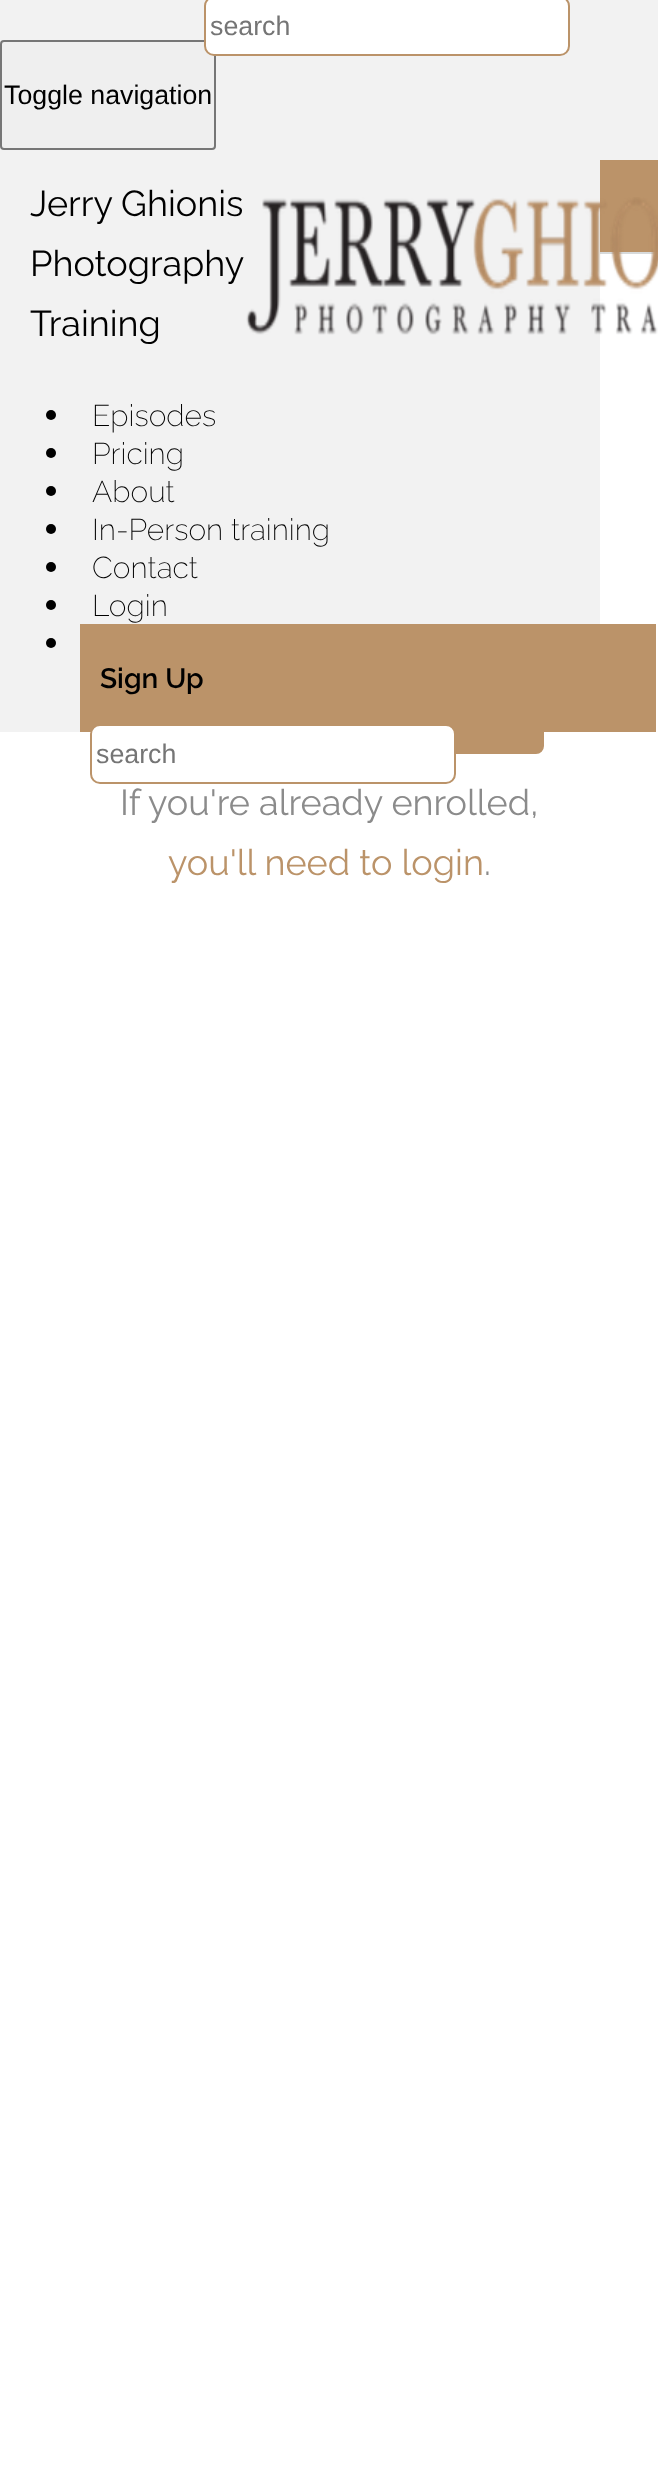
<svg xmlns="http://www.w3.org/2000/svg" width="658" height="2467">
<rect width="100%" height="100%" fill="#fff"/>
<rect x="115" y="663" width="428" height="90" rx="7" fill="#bb9369" stroke="#bb9369" stroke-width="2"/>
<rect width="600" height="732" fill="#f2f2f2"/>
<rect x="1" y="41" width="214" height="108" rx="3" fill="#efefef" stroke="#767676" stroke-width="2"/>
<rect x="205" y="-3" width="364" height="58" rx="9" fill="#fff" stroke="#bb9369" stroke-width="2"/>
<text x="210" y="35" style="font-family:Liberation Sans;font-size:26.75px;fill:#757575">search</text>
<text x="4" y="104" style="font-family:Liberation Sans;font-size:26.75px;fill:#000">Toggle navigation</text>
<text x="30" y="216" style="font-family:Raleway;font-size:36px;fill:#000">Jerry Ghionis</text>
<text x="30" y="276" style="font-family:Raleway;font-size:36px;fill:#000">Photography</text>
<text x="30" y="336" style="font-family:Raleway;font-size:36px;fill:#000">Training</text>
<rect x="600" y="252" width="58" height="2" fill="#d7dadb"/>
<rect x="600" y="160" width="58" height="92" fill="#bb9369"/>
<image x="246" y="197" width="412" height="138" href="media/1.png"/>
<circle cx="51" cy="415" r="5" fill="#000"/>
<text x="92" y="426" style="font-family:Raleway;font-size:30px;font-weight:200;fill:#000">Episodes</text>
<circle cx="51" cy="453" r="5" fill="#000"/>
<text x="92" y="464" style="font-family:Raleway;font-size:30px;font-weight:200;fill:#000">Pricing</text>
<circle cx="51" cy="491" r="5" fill="#000"/>
<text x="92" y="502" style="font-family:Raleway;font-size:30px;font-weight:200;fill:#000">About</text>
<circle cx="51" cy="529" r="5" fill="#000"/>
<text x="92" y="540" style="font-family:Raleway;font-size:30px;font-weight:200;fill:#000">In-Person training</text>
<circle cx="51" cy="567" r="5" fill="#000"/>
<text x="92" y="578" style="font-family:Raleway;font-size:30px;font-weight:200;fill:#000">Contact</text>
<circle cx="51" cy="605" r="5" fill="#000"/>
<text x="92" y="616" style="font-family:Raleway;font-size:30px;font-weight:200;fill:#000">Login</text>
<circle cx="51" cy="643" r="5" fill="#000"/>
<rect x="80" y="624" width="576" height="108" fill="#bb9369"/>
<text x="100" y="688" style="font-family:Raleway;font-size:28px;font-weight:600;fill:#000">Sign Up</text>
<rect x="91" y="725" width="364" height="58" rx="9" fill="#fff" stroke="#bb9369" stroke-width="2"/>
<text x="96" y="763" style="font-family:Liberation Sans;font-size:26.75px;fill:#757575">search</text>
<rect x="600" width="58" height="160" fill="#f2f2f2"/>
<text x="120" y="815" style="font-family:Raleway;font-size:36px;fill:#8b8b8b">If you're already enrolled,</text>
<text x="168" y="875" style="font-family:Raleway;font-size:36px;fill:#bb9369">you'll need to login</text>
<text x="484" y="875" style="font-family:Raleway;font-size:36px;fill:#8b8b8b">.</text>
</svg>
